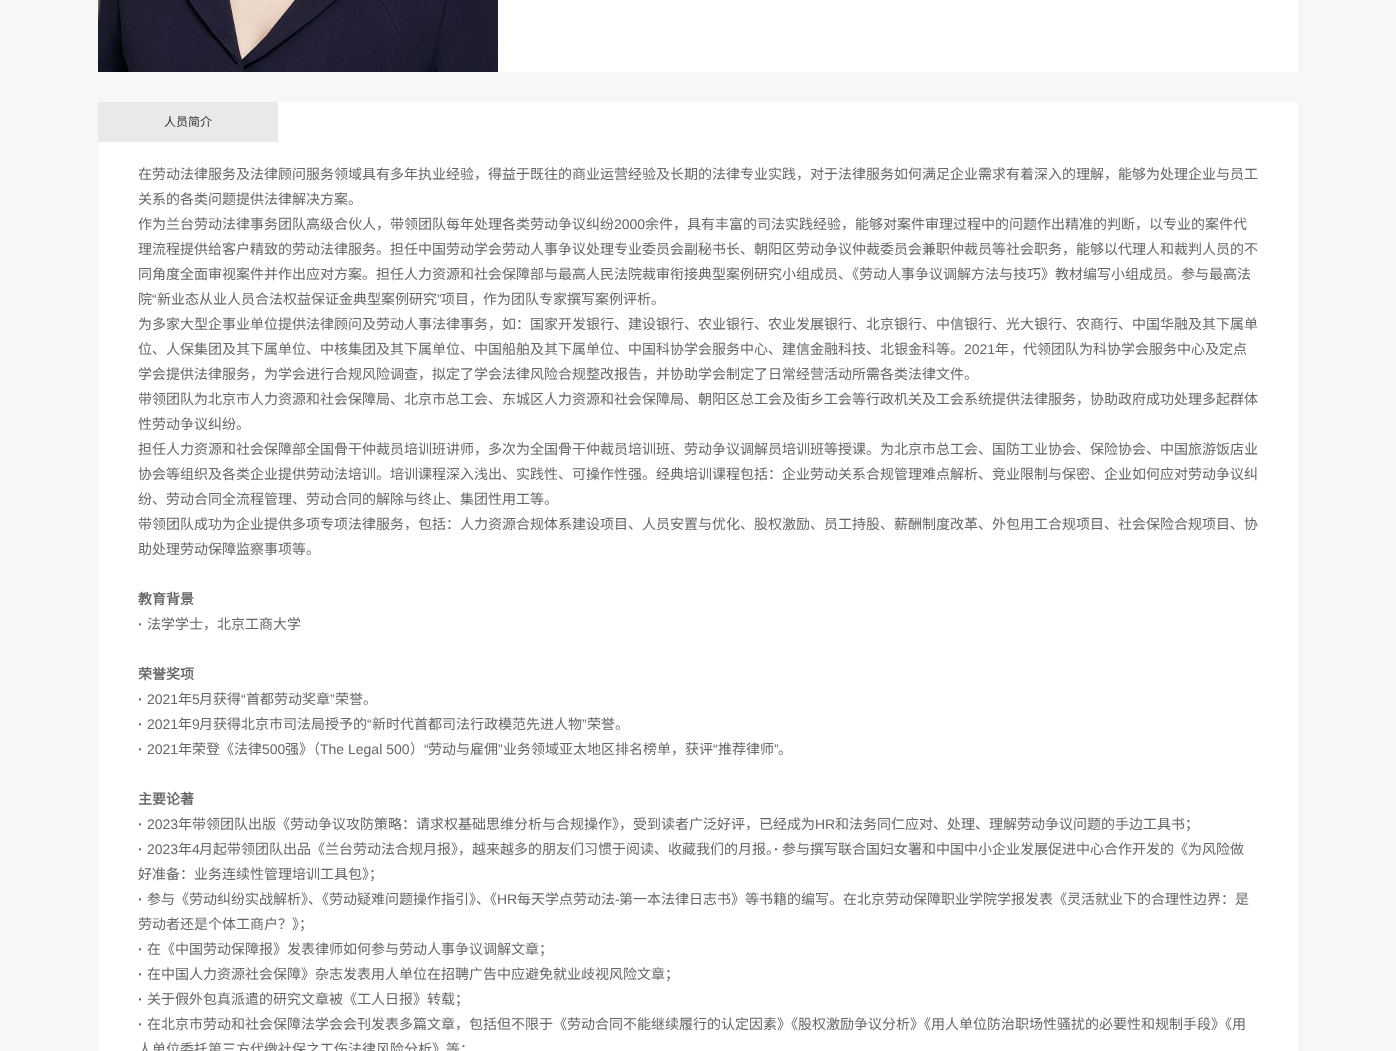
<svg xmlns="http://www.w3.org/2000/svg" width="1396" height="1051">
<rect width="100%" height="100%" fill="#f7f7f7"/>
<image x="98" y="0" width="400" height="72" href="media/1.png"/>
<rect x="498" width="800" height="72" fill="#fff"/>
<rect x="98" y="102" width="1200" height="949" fill="#fff"/>
<rect x="98" y="102" width="180" height="40" fill="#e9e9e9"/>
<text x="164" y="126" style="font-family:Noto Sans CJK SC;font-size:12px;fill:#333">人员简介</text>
<text x="138" y="179" style="font-family:Noto Sans CJK SC;font-size:14px;fill:#666">在劳动法律服务及法律顾问服务领域具有多年执业经验，得益于既往的商业运营经验及长期的法律专业实践，对于法律服务如何满足企业需求有着深入的理解，能够为处理企业与员工</text>
<text x="138" y="204" style="font-family:Noto Sans CJK SC;font-size:14px;fill:#666">关系的各类问题提供法律解决方案。</text>
<text x="138" y="229" style="font-family:Noto Sans CJK SC;font-size:14px;fill:#666">作为兰台劳动法律事务团队高级合伙人，带领团队每年处理各类劳动争议纠纷</text>
<text x="614" y="229" style="font-family:Liberation Sans;font-size:14px;fill:#666">2000</text>
<text x="645" y="229" style="font-family:Noto Sans CJK SC;font-size:14px;fill:#666">余件，具有丰富的司法实践经验，能够对案件审理过程中的问题作出精准的判断，以专业的案件代</text>
<text x="138" y="254" style="font-family:Noto Sans CJK SC;font-size:14px;fill:#666">理流程提供给客户精致的劳动法律服务。担任中国劳动学会劳动人事争议处理专业委员会副秘书长、朝阳区劳动争议仲裁委员会兼职仲裁员等社会职务，能够以代理人和裁判人员的不</text>
<text x="138" y="279" style="font-family:Noto Sans CJK SC;font-size:14px;fill:#666">同角度全面审视案件并作出应对方案。担任人力资源和社会保障部与最高人民法院裁审衔接典型案例研究小组成员、《劳动人事争议调解方法与技巧》教材编写小组成员。参与最高法</text>
<text x="138" y="304" style="font-family:Noto Sans CJK SC;font-size:14px;fill:#666">院</text>
<text x="152" y="304" style="font-family:Liberation Sans;font-size:14px;fill:#666">“</text>
<text x="157" y="304" style="font-family:Noto Sans CJK SC;font-size:14px;fill:#666">新业态从业人员合法权益保证金典型案例研究</text>
<text x="437" y="304" style="font-family:Liberation Sans;font-size:14px;fill:#666">”</text>
<text x="441" y="304" style="font-family:Noto Sans CJK SC;font-size:14px;fill:#666">项目，作为团队专家撰写案例评析。</text>
<text x="138" y="329" style="font-family:Noto Sans CJK SC;font-size:14px;fill:#666">为多家大型企事业单位提供法律顾问及劳动人事法律事务，如：国家开发银行、建设银行、农业银行、农业发展银行、北京银行、中信银行、光大银行、农商行、中国华融及其下属单</text>
<text x="138" y="354" style="font-family:Noto Sans CJK SC;font-size:14px;fill:#666">位、人保集团及其下属单位、中核集团及其下属单位、中国船舶及其下属单位、中国科协学会服务中心、建信金融科技、北银金科等。</text>
<text x="964" y="354" style="font-family:Liberation Sans;font-size:14px;fill:#666">2021</text>
<text x="995" y="354" style="font-family:Noto Sans CJK SC;font-size:14px;fill:#666">年，代领团队为科协学会服务中心及定点</text>
<text x="138" y="379" style="font-family:Noto Sans CJK SC;font-size:14px;fill:#666">学会提供法律服务，为学会进行合规风险调查，拟定了学会法律风险合规整改报告，并协助学会制定了日常经营活动所需各类法律文件。</text>
<text x="138" y="404" style="font-family:Noto Sans CJK SC;font-size:14px;fill:#666">带领团队为北京市人力资源和社会保障局、北京市总工会、东城区人力资源和社会保障局、朝阳区总工会及街乡工会等行政机关及工会系统提供法律服务，协助政府成功处理多起群体</text>
<text x="138" y="429" style="font-family:Noto Sans CJK SC;font-size:14px;fill:#666">性劳动争议纠纷。</text>
<text x="138" y="454" style="font-family:Noto Sans CJK SC;font-size:14px;fill:#666">担任人力资源和社会保障部全国骨干仲裁员培训班讲师，多次为全国骨干仲裁员培训班、劳动争议调解员培训班等授课。为北京市总工会、国防工业协会、保险协会、中国旅游饭店业</text>
<text x="138" y="479" style="font-family:Noto Sans CJK SC;font-size:14px;fill:#666">协会等组织及各类企业提供劳动法培训。培训课程深入浅出、实践性、可操作性强。经典培训课程包括：企业劳动关系合规管理难点解析、竞业限制与保密、企业如何应对劳动争议纠</text>
<text x="138" y="504" style="font-family:Noto Sans CJK SC;font-size:14px;fill:#666">纷、劳动合同全流程管理、劳动合同的解除与终止、集团性用工等。</text>
<text x="138" y="529" style="font-family:Noto Sans CJK SC;font-size:14px;fill:#666">带领团队成功为企业提供多项专项法律服务，包括：人力资源合规体系建设项目、人员安置与优化、股权激励、员工持股、薪酬制度改革、外包用工合规项目、社会保险合规项目、协</text>
<text x="138" y="554" style="font-family:Noto Sans CJK SC;font-size:14px;fill:#666">助处理劳动保障监察事项等。</text>
<text x="138" y="604" style="font-family:Noto Sans CJK SC;font-size:14px;font-weight:bold;fill:#666">教育背景</text>
<text x="138" y="629" style="font-family:Liberation Sans;font-size:14px;font-weight:bold;fill:#666">·</text>
<text x="147" y="629" style="font-family:Noto Sans CJK SC;font-size:14px;fill:#666">法学学士，北京工商大学</text>
<text x="138" y="679" style="font-family:Noto Sans CJK SC;font-size:14px;font-weight:bold;fill:#666">荣誉奖项</text>
<text x="147" y="704" style="font-family:Liberation Sans;font-size:14px;fill:#666">2021</text>
<text x="178" y="704" style="font-family:Noto Sans CJK SC;font-size:14px;fill:#666">年</text>
<text x="192" y="704" style="font-family:Liberation Sans;font-size:14px;fill:#666">5</text>
<text x="199" y="704" style="font-family:Noto Sans CJK SC;font-size:14px;fill:#666">月获得</text>
<text x="241" y="704" style="font-family:Liberation Sans;font-size:14px;fill:#666">“</text>
<text x="246" y="704" style="font-family:Noto Sans CJK SC;font-size:14px;fill:#666">首都劳动奖章</text>
<text x="330" y="704" style="font-family:Liberation Sans;font-size:14px;fill:#666">”</text>
<text x="335" y="704" style="font-family:Noto Sans CJK SC;font-size:14px;fill:#666">荣誉。</text>
<text x="138" y="704" style="font-family:Liberation Sans;font-size:14px;font-weight:bold;fill:#666">·</text>
<text x="147" y="729" style="font-family:Liberation Sans;font-size:14px;fill:#666">2021</text>
<text x="178" y="729" style="font-family:Noto Sans CJK SC;font-size:14px;fill:#666">年</text>
<text x="192" y="729" style="font-family:Liberation Sans;font-size:14px;fill:#666">9</text>
<text x="199" y="729" style="font-family:Noto Sans CJK SC;font-size:14px;fill:#666">月获得北京市司法局授予的</text>
<text x="367" y="729" style="font-family:Liberation Sans;font-size:14px;fill:#666">“</text>
<text x="372" y="729" style="font-family:Noto Sans CJK SC;font-size:14px;fill:#666">新时代首都司法行政模范先进人物</text>
<text x="582" y="729" style="font-family:Liberation Sans;font-size:14px;fill:#666">”</text>
<text x="587" y="729" style="font-family:Noto Sans CJK SC;font-size:14px;fill:#666">荣誉。</text>
<text x="138" y="729" style="font-family:Liberation Sans;font-size:14px;font-weight:bold;fill:#666">·</text>
<text x="147" y="754" style="font-family:Liberation Sans;font-size:14px;fill:#666">2021</text>
<text x="178" y="754" style="font-family:Noto Sans CJK SC;font-size:14px;fill:#666">年荣登《法律</text>
<text x="262" y="754" style="font-family:Liberation Sans;font-size:14px;fill:#666">500</text>
<text x="285" y="754" style="font-family:Noto Sans CJK SC;font-size:14px;fill:#666">强》（</text>
<text x="320" y="754" style="font-family:Liberation Sans;font-size:14px;fill:#666">The Legal 500</text>
<text x="410" y="754" style="font-family:Noto Sans CJK SC;font-size:14px;fill:#666">）</text>
<text x="424" y="754" style="font-family:Liberation Sans;font-size:14px;fill:#666">“</text>
<text x="428" y="754" style="font-family:Noto Sans CJK SC;font-size:14px;fill:#666">劳动与雇佣</text>
<text x="498" y="754" style="font-family:Liberation Sans;font-size:14px;fill:#666">”</text>
<text x="503" y="754" style="font-family:Noto Sans CJK SC;font-size:14px;fill:#666">业务领域亚太地区排名榜单，获评</text>
<text x="713" y="754" style="font-family:Liberation Sans;font-size:14px;fill:#666">“</text>
<text x="718" y="754" style="font-family:Noto Sans CJK SC;font-size:14px;fill:#666">推荐律师</text>
<text x="774" y="754" style="font-family:Liberation Sans;font-size:14px;fill:#666">”</text>
<text x="138" y="754" style="font-family:Liberation Sans;font-size:14px;font-weight:bold;fill:#666">·</text>
<text x="778" y="754" style="font-family:Noto Sans CJK SC;font-size:14px;fill:#666">。</text>
<text x="138" y="804" style="font-family:Noto Sans CJK SC;font-size:14px;font-weight:bold;fill:#666">主要论著</text>
<text x="138" y="829" style="font-family:Liberation Sans;font-size:14px;font-weight:bold;fill:#666">·</text>
<text x="147" y="829" style="font-family:Liberation Sans;font-size:14px;fill:#666">2023</text>
<text x="178" y="829" style="font-family:Noto Sans CJK SC;font-size:14px;fill:#666">年带领团队出版《劳动争议攻防策略：请求权基础思维分析与合规操作》，受到读者广泛好评，已经成为</text>
<text x="815" y="829" style="font-family:Liberation Sans;font-size:14px;fill:#666">HR</text>
<text x="835" y="829" style="font-family:Noto Sans CJK SC;font-size:14px;fill:#666">和法务同仁应对、处理、理解劳动争议问题的手边工具书；</text>
<text x="138" y="854" style="font-family:Liberation Sans;font-size:14px;font-weight:bold;fill:#666">·</text>
<text x="147" y="854" style="font-family:Liberation Sans;font-size:14px;fill:#666">2023</text>
<text x="178" y="854" style="font-family:Noto Sans CJK SC;font-size:14px;fill:#666">年</text>
<text x="192" y="854" style="font-family:Liberation Sans;font-size:14px;fill:#666">4</text>
<text x="199" y="854" style="font-family:Noto Sans CJK SC;font-size:14px;fill:#666">月起带领团队出品《兰台劳动法合规月报》，越来越多的朋友们习惯于阅读、收藏我们的月报。</text>
<text x="774" y="854" style="font-family:Liberation Sans;font-size:14px;font-weight:bold;fill:#666">·</text>
<text x="782" y="854" style="font-family:Noto Sans CJK SC;font-size:14px;fill:#666">参与撰写联合国妇女署和中国中小企业发展促进中心合作开发的《为风险做</text>
<text x="138" y="879" style="font-family:Noto Sans CJK SC;font-size:14px;fill:#666">好准备：业务连续性管理培训工具包》；</text>
<text x="138" y="904" style="font-family:Liberation Sans;font-size:14px;font-weight:bold;fill:#666">·</text>
<text x="147" y="904" style="font-family:Noto Sans CJK SC;font-size:14px;fill:#666">参与《劳动纠纷实战解析》、《劳动疑难问题操作指引》、《</text>
<text x="497" y="904" style="font-family:Liberation Sans;font-size:14px;fill:#666">HR</text>
<text x="517" y="904" style="font-family:Noto Sans CJK SC;font-size:14px;fill:#666">每天学点劳动法</text>
<text x="615" y="904" style="font-family:Liberation Sans;font-size:14px;fill:#666">-</text>
<text x="619" y="904" style="font-family:Noto Sans CJK SC;font-size:14px;fill:#666">第一本法律日志书》等书籍的编写。在北京劳动保障职业学院学报发表《灵活就业下的合理性边界：是</text>
<text x="138" y="929" style="font-family:Noto Sans CJK SC;font-size:14px;fill:#666">劳动者还是个体工商户？》；</text>
<text x="138" y="954" style="font-family:Liberation Sans;font-size:14px;font-weight:bold;fill:#666">·</text>
<text x="147" y="954" style="font-family:Noto Sans CJK SC;font-size:14px;fill:#666">在《中国劳动保障报》发表律师如何参与劳动人事争议调解文章；</text>
<text x="138" y="979" style="font-family:Liberation Sans;font-size:14px;font-weight:bold;fill:#666">·</text>
<text x="147" y="979" style="font-family:Noto Sans CJK SC;font-size:14px;fill:#666">在中国人力资源社会保障》杂志发表用人单位在招聘广告中应避免就业歧视风险文章；</text>
<text x="138" y="1004" style="font-family:Liberation Sans;font-size:14px;font-weight:bold;fill:#666">·</text>
<text x="147" y="1004" style="font-family:Noto Sans CJK SC;font-size:14px;fill:#666">关于假外包真派遣的研究文章被《工人日报》转载；</text>
<text x="138" y="1029" style="font-family:Liberation Sans;font-size:14px;font-weight:bold;fill:#666">·</text>
<text x="147" y="1029" style="font-family:Noto Sans CJK SC;font-size:14px;fill:#666">在北京市劳动和社会保障法学会会刊发表多篇文章，包括但不限于《劳动合同不能继续履行的认定因素》《股权激励争议分析》《用人单位防治职场性骚扰的必要性和规制手段》《用</text>
<text x="138" y="1054" style="font-family:Noto Sans CJK SC;font-size:14px;fill:#666">人单位委托第三方代缴社保之工伤法律风险分析》等；</text>
</svg>
